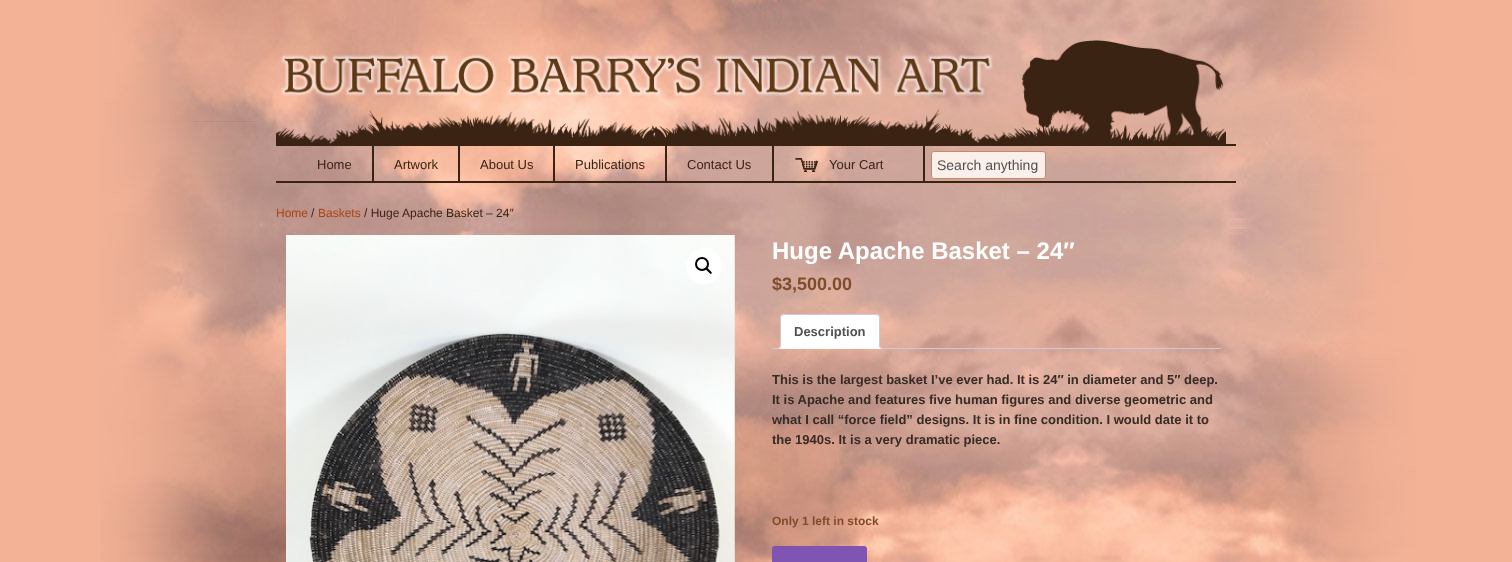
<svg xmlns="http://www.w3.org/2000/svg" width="1512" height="562">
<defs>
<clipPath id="clip1"><rect x="772" y="314" width="449" height="35"/></clipPath>
</defs>
<rect width="100%" height="100%" fill="#f3b296"/>
<image x="100" y="0" width="1316" height="562" href="media/1.png"/>
<image x="276" y="40" width="950" height="104" href="media/2.png"/>
<rect x="276" y="144" width="960" height="2" fill="#3b2314"/>
<rect x="372" y="146" width="2" height="35" fill="#3b2314"/>
<text x="317" y="169" style="font-family:Liberation Sans;font-size:13px;fill:#3b2314">Home</text>
<rect x="458" y="146" width="2" height="35" fill="#3b2314"/>
<text x="394" y="169" style="font-family:Liberation Sans;font-size:13px;fill:#3b2314">Artwork</text>
<rect x="553" y="146" width="2" height="35" fill="#3b2314"/>
<text x="480" y="169" style="font-family:Liberation Sans;font-size:13px;fill:#3b2314">About Us</text>
<rect x="665" y="146" width="2" height="35" fill="#3b2314"/>
<text x="575" y="169" style="font-family:Liberation Sans;font-size:13px;fill:#3b2314">Publications</text>
<rect x="772" y="146" width="2" height="35" fill="#3b2314"/>
<text x="687" y="169" style="font-family:Liberation Sans;font-size:13px;fill:#3b2314">Contact Us</text>
<rect x="923" y="146" width="2" height="35" fill="#3b2314"/>
<image x="795" y="158" width="24" height="14" href="media/3.png"/>
<text x="829" y="169" style="font-family:Liberation Sans;font-size:13px;fill:#3b2314">Your Cart</text>
<rect x="931.5" y="151.5" width="114" height="27" rx="2.5" fill="#fbefea" stroke="#c38a72"/>
<text x="937" y="170" style="font-family:Liberation Sans;font-size:14px;fill:#515151">Search anything</text>
<rect x="276" y="181" width="960" height="2" fill="#3b2314"/>
<text x="276" y="217" style="font-family:Liberation Sans;font-size:12px;fill:#ad4310">Home</text>
<text x="311" y="217" style="font-family:Liberation Sans;font-size:12px;fill:#3b2314">/</text>
<text x="318" y="217" style="font-family:Liberation Sans;font-size:12px;fill:#ad4310">Baskets</text>
<text x="364" y="217" style="font-family:Liberation Sans;font-size:12px;fill:#3b2314">/ Huge Apache Basket – 24″</text>
<image x="286" y="235" width="449" height="327" href="media/4.png"/>
<circle cx="704" cy="266" r="18" fill="#fff"/>
<circle cx="702" cy="264" r="6" fill="none" stroke="#000" stroke-width="2"/>
<path d="M706 268c1-1 3 1.5 3.5 2c.5 1 3.5 2.5 2 3.5c-1 1.5-3-1.5-3.5-2c-.5-.5-3-2.5-2-3.5z" fill="#000"/>
<text x="772" y="259" style="font-family:Liberation Sans;font-size:24px;font-weight:bold;fill:#fff">Huge Apache Basket – 24″</text>
<text x="772" y="290" style="font-family:Liberation Sans;font-size:18px;font-weight:bold;fill:#814c2c">$3,500.00</text>
<rect x="772" y="348" width="449" height="1" fill="#cfc8d8"/>
<path d="M784 314h92c2 0 4 2 4 4v31h-100v-31c0-2 2-4 4-4z" fill="#fff"/>
<path d="M784 314l-3 1l1 1l2-1h92l2 1l1-1l-3-1z" fill="#cfc8d8"/>
<path d="M880 349v-31c0-1-.5-2-1-3l-1 1c1 0 1 1 1 2v30z" fill="#cfc8d8"/>
<path d="M880 349l-1-1h-98l-1 1z" fill="#fff"/>
<path d="M780 349l1-1v-30c0-1 0-2 1-2l-1-1c-.5 1-1 2-1 3z" fill="#cfc8d8"/>
<text x="794" y="336" style="font-family:Liberation Sans;font-size:13px;font-weight:bold;fill:#515151">Description</text>
<g clip-path="url(#clip1)">
<path d="M778 349v2c3.5 0 5-1.5 5-5h-2c-.5 1.5-1.5 2.5-3 3z" fill="#fff"/>
</g>
<path d="M776 344h5c0 3.5-1.5 5-5 5zm0 0h4c0 3-1 4-4 4z" fill="#cfc8d8" fill-rule="evenodd"/>
<g clip-path="url(#clip1)">
<path d="M877 346c0 3.5 1.5 5 5 5v-2c-1.5-.5-2.5-1.5-3-3z" fill="#fff"/>
</g>
<path d="M879 344h5v5c-2.5 0-5-1-5-4zm1 0h4v4c-2 0-4-.5-4-3z" fill="#cfc8d8" fill-rule="evenodd"/>
<text x="772" y="384" style="font-family:Liberation Sans;font-size:13px;font-weight:bold;fill:#382b25">This is the largest basket I’ve ever had. It is 24″ in diameter and 5″ deep.</text>
<text x="772" y="404" style="font-family:Liberation Sans;font-size:13px;font-weight:bold;fill:#382b25">It is Apache and features five human figures and diverse geometric and</text>
<text x="772" y="424" style="font-family:Liberation Sans;font-size:13px;font-weight:bold;fill:#382b25">what I call “force field” designs. It is in fine condition. I would date it to</text>
<text x="772" y="444" style="font-family:Liberation Sans;font-size:13px;font-weight:bold;fill:#382b25">the 1940s. It is a very dramatic piece.</text>
<text x="772" y="525" style="font-family:Liberation Sans;font-size:12px;font-weight:bold;fill:#814c2c">Only 1 left in stock</text>
<rect x="772" y="546" width="95" height="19" rx="3" fill="#7f54b3"/>
</svg>
